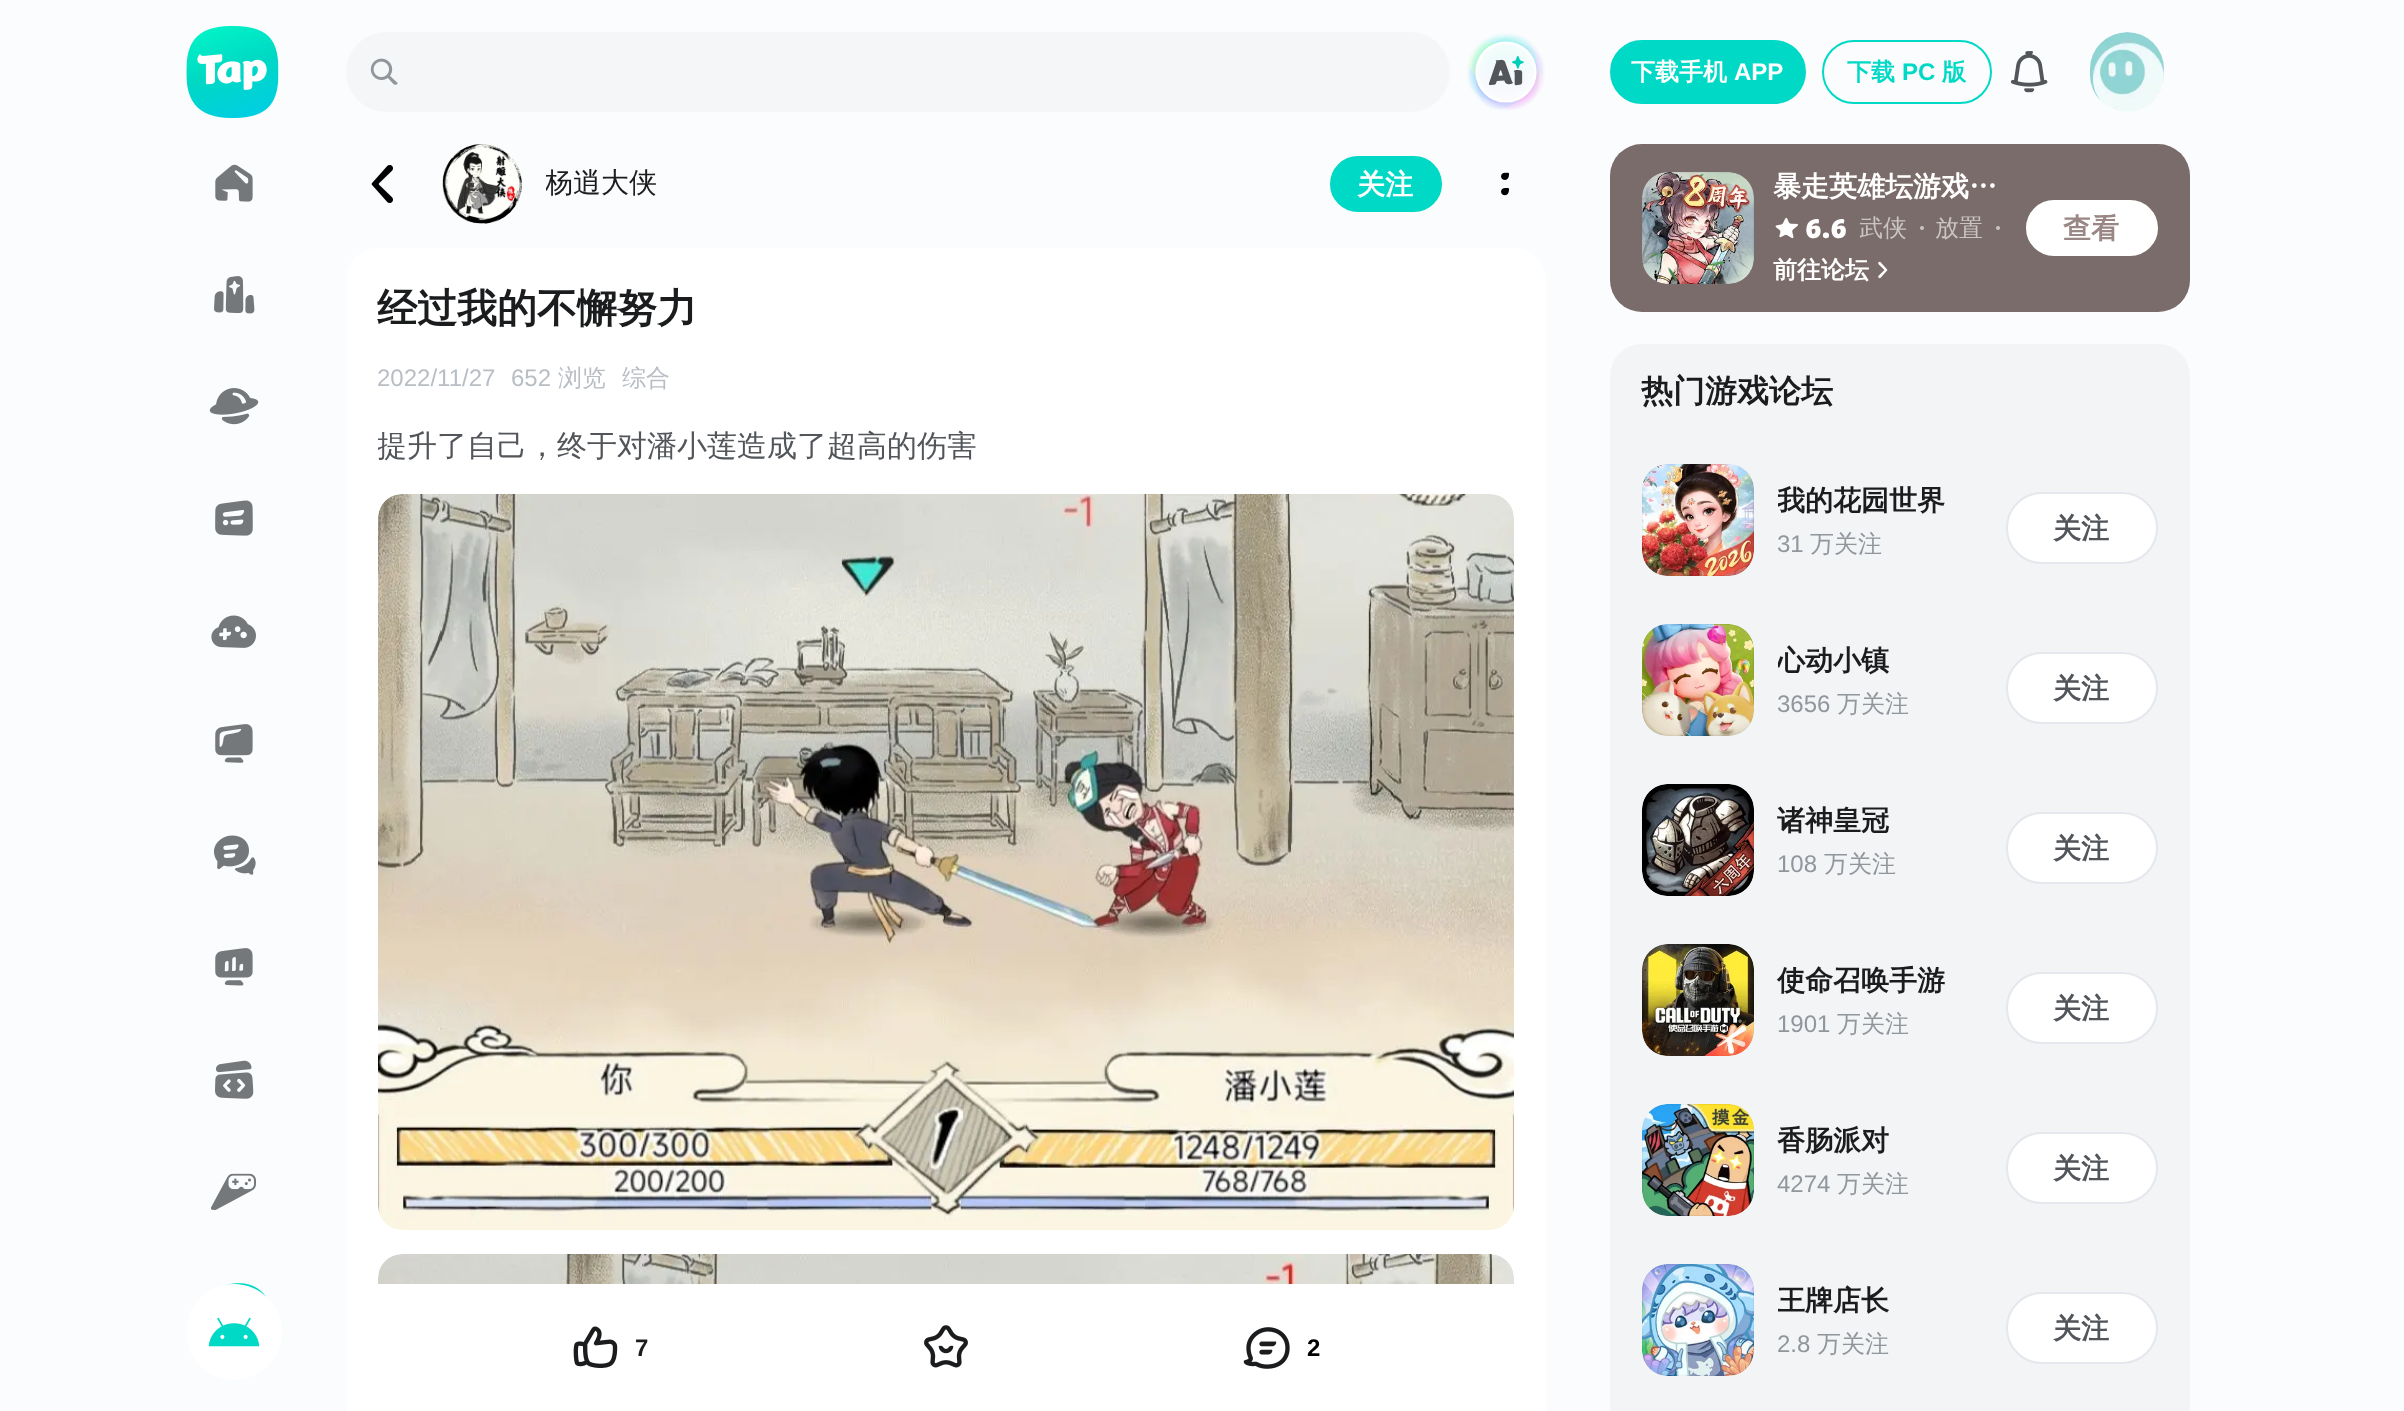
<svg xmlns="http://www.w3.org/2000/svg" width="2404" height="1411">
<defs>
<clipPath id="clip1"><rect x="546" y="166" width="112" height="36"/></clipPath>
<clipPath id="clip2"><rect x="378" y="420" width="1136" height="50"/></clipPath>
<clipPath id="clip3"><rect x="1860" y="208" width="150" height="40"/></clipPath>
<clipPath id="clip4"><rect x="1778" y="478" width="212" height="44"/></clipPath>
<clipPath id="clip5"><rect x="1778" y="638" width="212" height="44"/></clipPath>
<clipPath id="clip6"><rect x="1778" y="1278" width="212" height="44"/></clipPath>
</defs>
<rect width="100%" height="100%" fill="#fafcfd"/>
<image x="186" y="26" width="93" height="92" href="media/1.png"/>
<image x="215" y="164" width="38" height="38" href="media/2.png"/>
<image x="214" y="276" width="41" height="38" href="media/3.png"/>
<image x="209" y="388" width="50" height="37" href="media/4.png"/>
<image x="215" y="500" width="38" height="36" href="media/5.png"/>
<image x="211" y="615" width="45" height="33" href="media/6.png"/>
<image x="215" y="724" width="38" height="39" href="media/7.png"/>
<image x="213" y="835" width="43" height="40" href="media/8.png"/>
<image x="215" y="948" width="38" height="38" href="media/9.png"/>
<image x="215" y="1060" width="39" height="39" href="media/10.png"/>
<image x="211" y="1173" width="45" height="37" href="media/11.png"/>
<image x="224" y="1283" width="44" height="16" href="media/12.png"/>
<circle cx="234" cy="1332" r="48" fill="#fff"/>
<image x="208" y="1317" width="52" height="30" href="media/13.png"/>
<rect x="346" y="32" width="1104" height="80" rx="40" fill="#f4f6f8"/>
<image x="370" y="58" width="28" height="27" href="media/14.png"/>
<image x="1467" y="33" width="78" height="78" href="media/15.png"/>
<image x="371" y="164" width="22" height="39" href="media/16.png"/>
<circle cx="482" cy="184" r="39.5" fill="none" stroke="#ebedee"/>
<image x="442" y="144" width="80" height="80" href="media/17.png"/>
<g clip-path="url(#clip1)">
<text x="545" y="192" style="font-family:WenQuanYi Zen Hei;font-size:28px;font-weight:500;fill:#1a1c1e">杨逍大侠</text>
</g>
<rect x="1331" y="157" width="110" height="54" rx="27" fill="#00d9c5" stroke="#00d9c5" stroke-width="2"/>
<text x="1357" y="194" style="font-family:WenQuanYi Zen Hei;font-size:28px;font-weight:bold;fill:#fff">关注</text>
<image x="1501" y="172" width="9" height="24" href="media/18.png"/>
<rect x="346" y="248" width="1200" height="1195" rx="32" fill="#fff"/>
<text x="377" y="322" style="font-family:WenQuanYi Zen Hei;font-size:40px;font-weight:bold;fill:#1a1c1e">经过我的不懈努力</text>
<text x="377" y="386" style="font-family:Liberation Sans;font-size:24px;fill:#b8bec4">2022/11/27</text>
<text x="511" y="386" style="font-family:Liberation Sans;font-size:24px;fill:#b8bec4">652</text>
<text x="558" y="386" style="font-family:WenQuanYi Zen Hei;font-size:24px;font-weight:500;fill:#b8bec4">浏览</text>
<text x="622" y="386" style="font-family:WenQuanYi Zen Hei;font-size:24px;font-weight:500;fill:#b8bec4">综合</text>
<g clip-path="url(#clip2)">
<text x="377" y="456" style="font-family:WenQuanYi Zen Hei;font-size:30px;font-weight:500;fill:#52565a">提升了自己，终于对潘小莲造成了超高的伤害</text>
</g>
<image x="378" y="494" width="1136" height="736" href="media/19.png"/>
<image x="378" y="1254" width="1136" height="30" href="media/20.png"/>
<image x="573" y="1326" width="45" height="42" href="media/21.png"/>
<text x="635" y="1356" style="font-family:Liberation Sans;font-size:24px;font-weight:bold;fill:#1a1c1e">7</text>
<image x="924" y="1325" width="44" height="43" href="media/22.png"/>
<image x="1243" y="1327" width="47" height="42" href="media/23.png"/>
<text x="1307" y="1356" style="font-family:Liberation Sans;font-size:24px;font-weight:bold;fill:#000">2</text>
<rect x="1611" y="41" width="194" height="62" rx="31" fill="#00d9c5" stroke="#00d9c5" stroke-width="2"/>
<text x="1631" y="80" style="font-family:WenQuanYi Zen Hei;font-size:24px;font-weight:bold;fill:#fff">下载手机</text>
<text x="1734" y="80" style="font-family:Liberation Sans;font-size:24px;font-weight:bold;fill:#fff">APP</text>
<rect x="1823" y="41" width="168" height="62" rx="31" fill="none" stroke="#00d9c5" stroke-width="2"/>
<text x="1847" y="80" style="font-family:WenQuanYi Zen Hei;font-size:24px;font-weight:bold;fill:#00d9c5">下载</text>
<text x="1902" y="80" style="font-family:Liberation Sans;font-size:24px;font-weight:bold;fill:#00d9c5">PC</text>
<text x="1942" y="80" style="font-family:WenQuanYi Zen Hei;font-size:24px;font-weight:bold;fill:#00d9c5">版</text>
<image x="2010" y="51" width="38" height="42" href="media/24.png"/>
<image x="2090" y="32" width="74" height="80" href="media/25.png"/>
<rect x="1610" y="144" width="580" height="168" rx="32" fill="#998785"/>
<rect x="1610" y="144" width="580" height="168" rx="32" fill="#00000033"/>
<image x="1642" y="172" width="112" height="112" href="media/26.png"/>
<text x="1773" y="196" style="font-family:WenQuanYi Zen Hei;font-size:28px;font-weight:bold;fill:#fff">暴走英雄坛游戏…</text>
<image x="1775" y="217" width="23" height="22" href="media/27.png"/>
<text x="1805" y="238" style="font-family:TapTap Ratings;font-size:28px;font-weight:900;fill:#fff">6.6</text>
<g clip-path="url(#clip3)">
<text x="1859" y="236" style="font-family:WenQuanYi Zen Hei;font-size:24px;font-weight:500;fill:#cac4c4">武侠</text>
</g>
<circle cx="1922" cy="228" r="2" fill="#cac4c4"/>
<text x="1935" y="236" style="font-family:WenQuanYi Zen Hei;font-size:24px;font-weight:500;fill:#cac4c4">放置</text>
<circle cx="1998" cy="228" r="2" fill="#cac4c4"/>
<text x="1773" y="278" style="font-family:WenQuanYi Zen Hei;font-size:24px;font-weight:bold;fill:#fff">前往论坛</text>
<image x="1878" y="261" width="10" height="18" href="media/28.png"/>
<rect x="2027" y="201" width="130" height="54" rx="27" fill="#fff" stroke="#fff" stroke-width="2"/>
<text x="2063" y="238" style="font-family:WenQuanYi Zen Hei;font-size:28px;font-weight:bold;fill:#998785">查看</text>
<rect x="1610" y="344" width="580" height="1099" rx="32" fill="#f2f4f6"/>
<text x="1641" y="402" style="font-family:WenQuanYi Zen Hei;font-size:32px;font-weight:bold;fill:#1a1c1e">热门游戏论坛</text>
<image x="1642" y="464" width="112" height="112" href="media/29.png"/>
<g clip-path="url(#clip4)">
<text x="1777" y="510" style="font-family:WenQuanYi Zen Hei;font-size:28px;font-weight:bold;fill:#1a1c1e">我的花园世界</text>
</g>
<text x="1777" y="552" style="font-family:Liberation Sans;font-size:24px;fill:#90969c">31</text>
<text x="1810" y="552" style="font-family:WenQuanYi Zen Hei;font-size:24px;font-weight:500;fill:#90969c">万关注</text>
<rect x="2007" y="493" width="150" height="70" rx="35" fill="#fff" stroke="#e4e8ec" stroke-width="2"/>
<text x="2053" y="538" style="font-family:WenQuanYi Zen Hei;font-size:28px;font-weight:bold;fill:#52565a">关注</text>
<image x="1642" y="624" width="112" height="112" href="media/30.png"/>
<g clip-path="url(#clip5)">
<text x="1777" y="670" style="font-family:WenQuanYi Zen Hei;font-size:28px;font-weight:bold;fill:#1a1c1e">心动小镇</text>
</g>
<text x="1777" y="712" style="font-family:Liberation Sans;font-size:24px;fill:#90969c">3656</text>
<text x="1837" y="712" style="font-family:WenQuanYi Zen Hei;font-size:24px;font-weight:500;fill:#90969c">万关注</text>
<rect x="2007" y="653" width="150" height="70" rx="35" fill="#fff" stroke="#e4e8ec" stroke-width="2"/>
<text x="2053" y="698" style="font-family:WenQuanYi Zen Hei;font-size:28px;font-weight:bold;fill:#52565a">关注</text>
<image x="1642" y="784" width="112" height="112" href="media/31.png"/>
<text x="1777" y="830" style="font-family:WenQuanYi Zen Hei;font-size:28px;font-weight:bold;fill:#1a1c1e">诸神皇冠</text>
<text x="1777" y="872" style="font-family:Liberation Sans;font-size:24px;fill:#90969c">108</text>
<text x="1824" y="872" style="font-family:WenQuanYi Zen Hei;font-size:24px;font-weight:500;fill:#90969c">万关注</text>
<rect x="2007" y="813" width="150" height="70" rx="35" fill="#fff" stroke="#e4e8ec" stroke-width="2"/>
<text x="2053" y="858" style="font-family:WenQuanYi Zen Hei;font-size:28px;font-weight:bold;fill:#52565a">关注</text>
<image x="1642" y="944" width="112" height="112" href="media/32.png"/>
<text x="1777" y="990" style="font-family:WenQuanYi Zen Hei;font-size:28px;font-weight:bold;fill:#1a1c1e">使命召唤手游</text>
<text x="1777" y="1032" style="font-family:Liberation Sans;font-size:24px;fill:#90969c">1901</text>
<text x="1837" y="1032" style="font-family:WenQuanYi Zen Hei;font-size:24px;font-weight:500;fill:#90969c">万关注</text>
<rect x="2007" y="973" width="150" height="70" rx="35" fill="#fff" stroke="#e4e8ec" stroke-width="2"/>
<text x="2053" y="1018" style="font-family:WenQuanYi Zen Hei;font-size:28px;font-weight:bold;fill:#52565a">关注</text>
<image x="1642" y="1104" width="112" height="112" href="media/33.png"/>
<text x="1777" y="1150" style="font-family:WenQuanYi Zen Hei;font-size:28px;font-weight:bold;fill:#1a1c1e">香肠派对</text>
<text x="1777" y="1192" style="font-family:Liberation Sans;font-size:24px;fill:#90969c">4274</text>
<text x="1837" y="1192" style="font-family:WenQuanYi Zen Hei;font-size:24px;font-weight:500;fill:#90969c">万关注</text>
<rect x="2007" y="1133" width="150" height="70" rx="35" fill="#fff" stroke="#e4e8ec" stroke-width="2"/>
<text x="2053" y="1178" style="font-family:WenQuanYi Zen Hei;font-size:28px;font-weight:bold;fill:#52565a">关注</text>
<image x="1642" y="1264" width="112" height="112" href="media/34.png"/>
<g clip-path="url(#clip6)">
<text x="1777" y="1310" style="font-family:WenQuanYi Zen Hei;font-size:28px;font-weight:bold;fill:#1a1c1e">王牌店长</text>
</g>
<text x="1777" y="1352" style="font-family:Liberation Sans;font-size:24px;fill:#90969c">2.8</text>
<text x="1817" y="1352" style="font-family:WenQuanYi Zen Hei;font-size:24px;font-weight:500;fill:#90969c">万关注</text>
<rect x="2007" y="1293" width="150" height="70" rx="35" fill="#fff" stroke="#e4e8ec" stroke-width="2"/>
<text x="2053" y="1338" style="font-family:WenQuanYi Zen Hei;font-size:28px;font-weight:bold;fill:#52565a">关注</text>
</svg>
